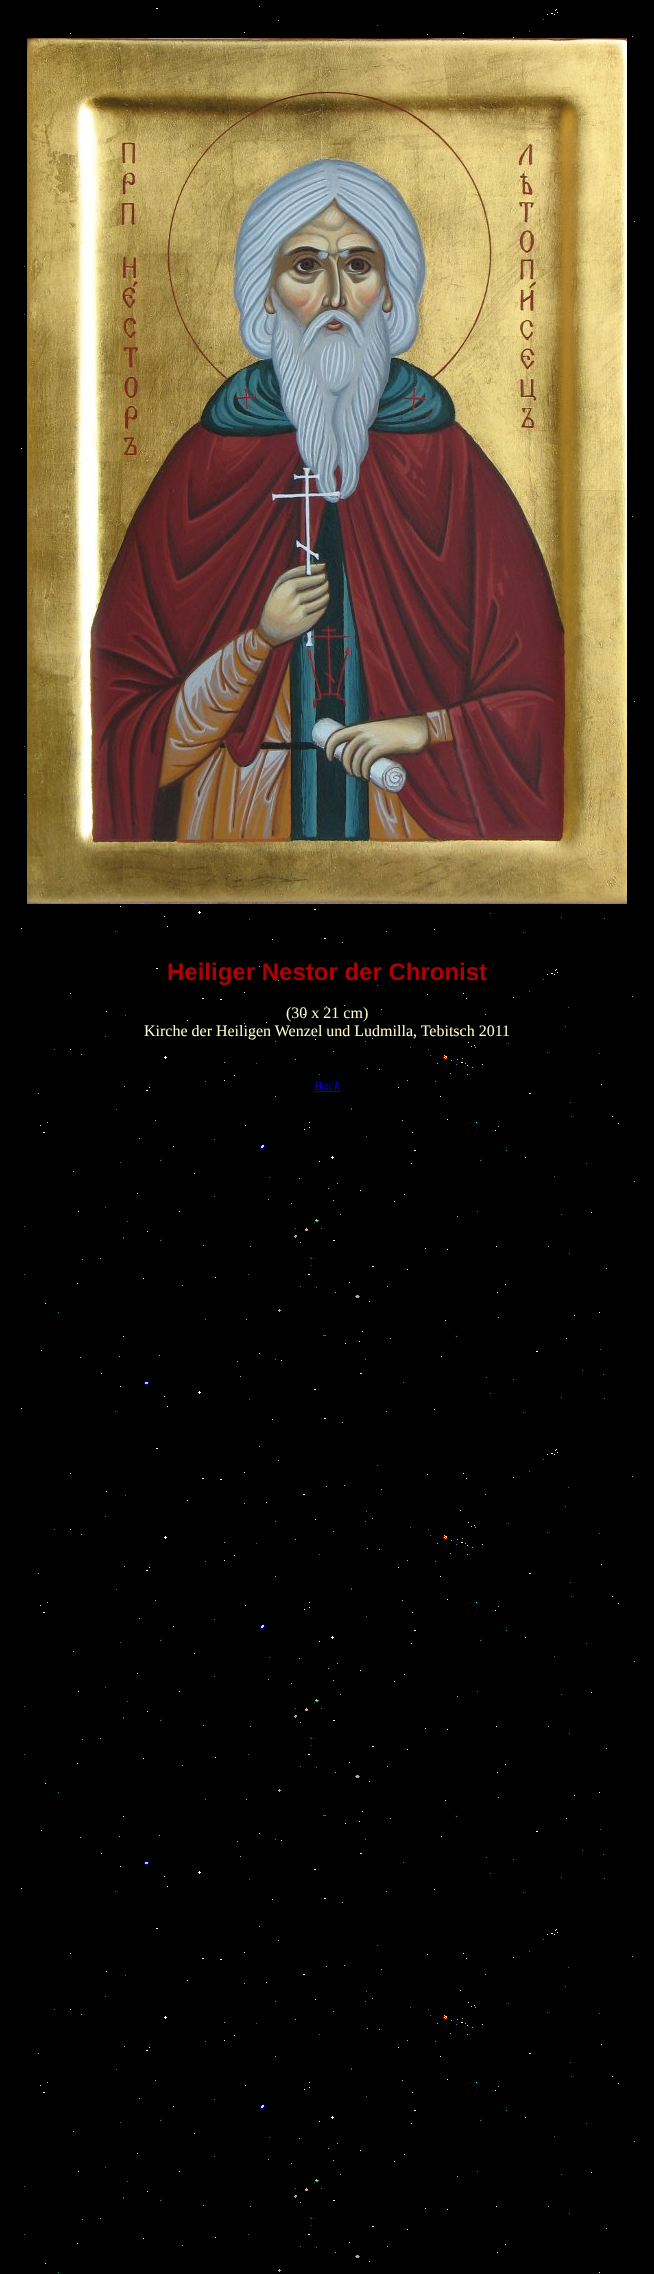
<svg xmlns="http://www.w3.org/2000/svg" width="654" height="2274">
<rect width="100%" height="100%" fill="#fff"/>
<image x="0" y="0" width="654" height="2274" href="media/1.png"/>
<image x="27" y="38" width="600" height="866" href="media/2.png"/>
<text x="167" y="980" style="font-family:Liberation Sans;font-size:24px;font-weight:bold;fill:#b00000">Heiliger Nestor der Chronist</text>
<text x="286" y="1018" style="font-family:Liberation Serif;font-size:16px;fill:#ffc">(30 x 21 cm)</text>
<text x="144" y="1036" style="font-family:Liberation Serif;font-size:16px;fill:#ffc">Kirche der Heiligen Wenzel und Ludmilla, Tebitsch 2011</text>
<text x="314" y="1090" style="font-family:Liberation Serif;font-size:13px;font-style:italic;fill:#00e">Back</text>
<rect x="314" y="1091" width="26" height="1" fill="#00e"/>
</svg>
